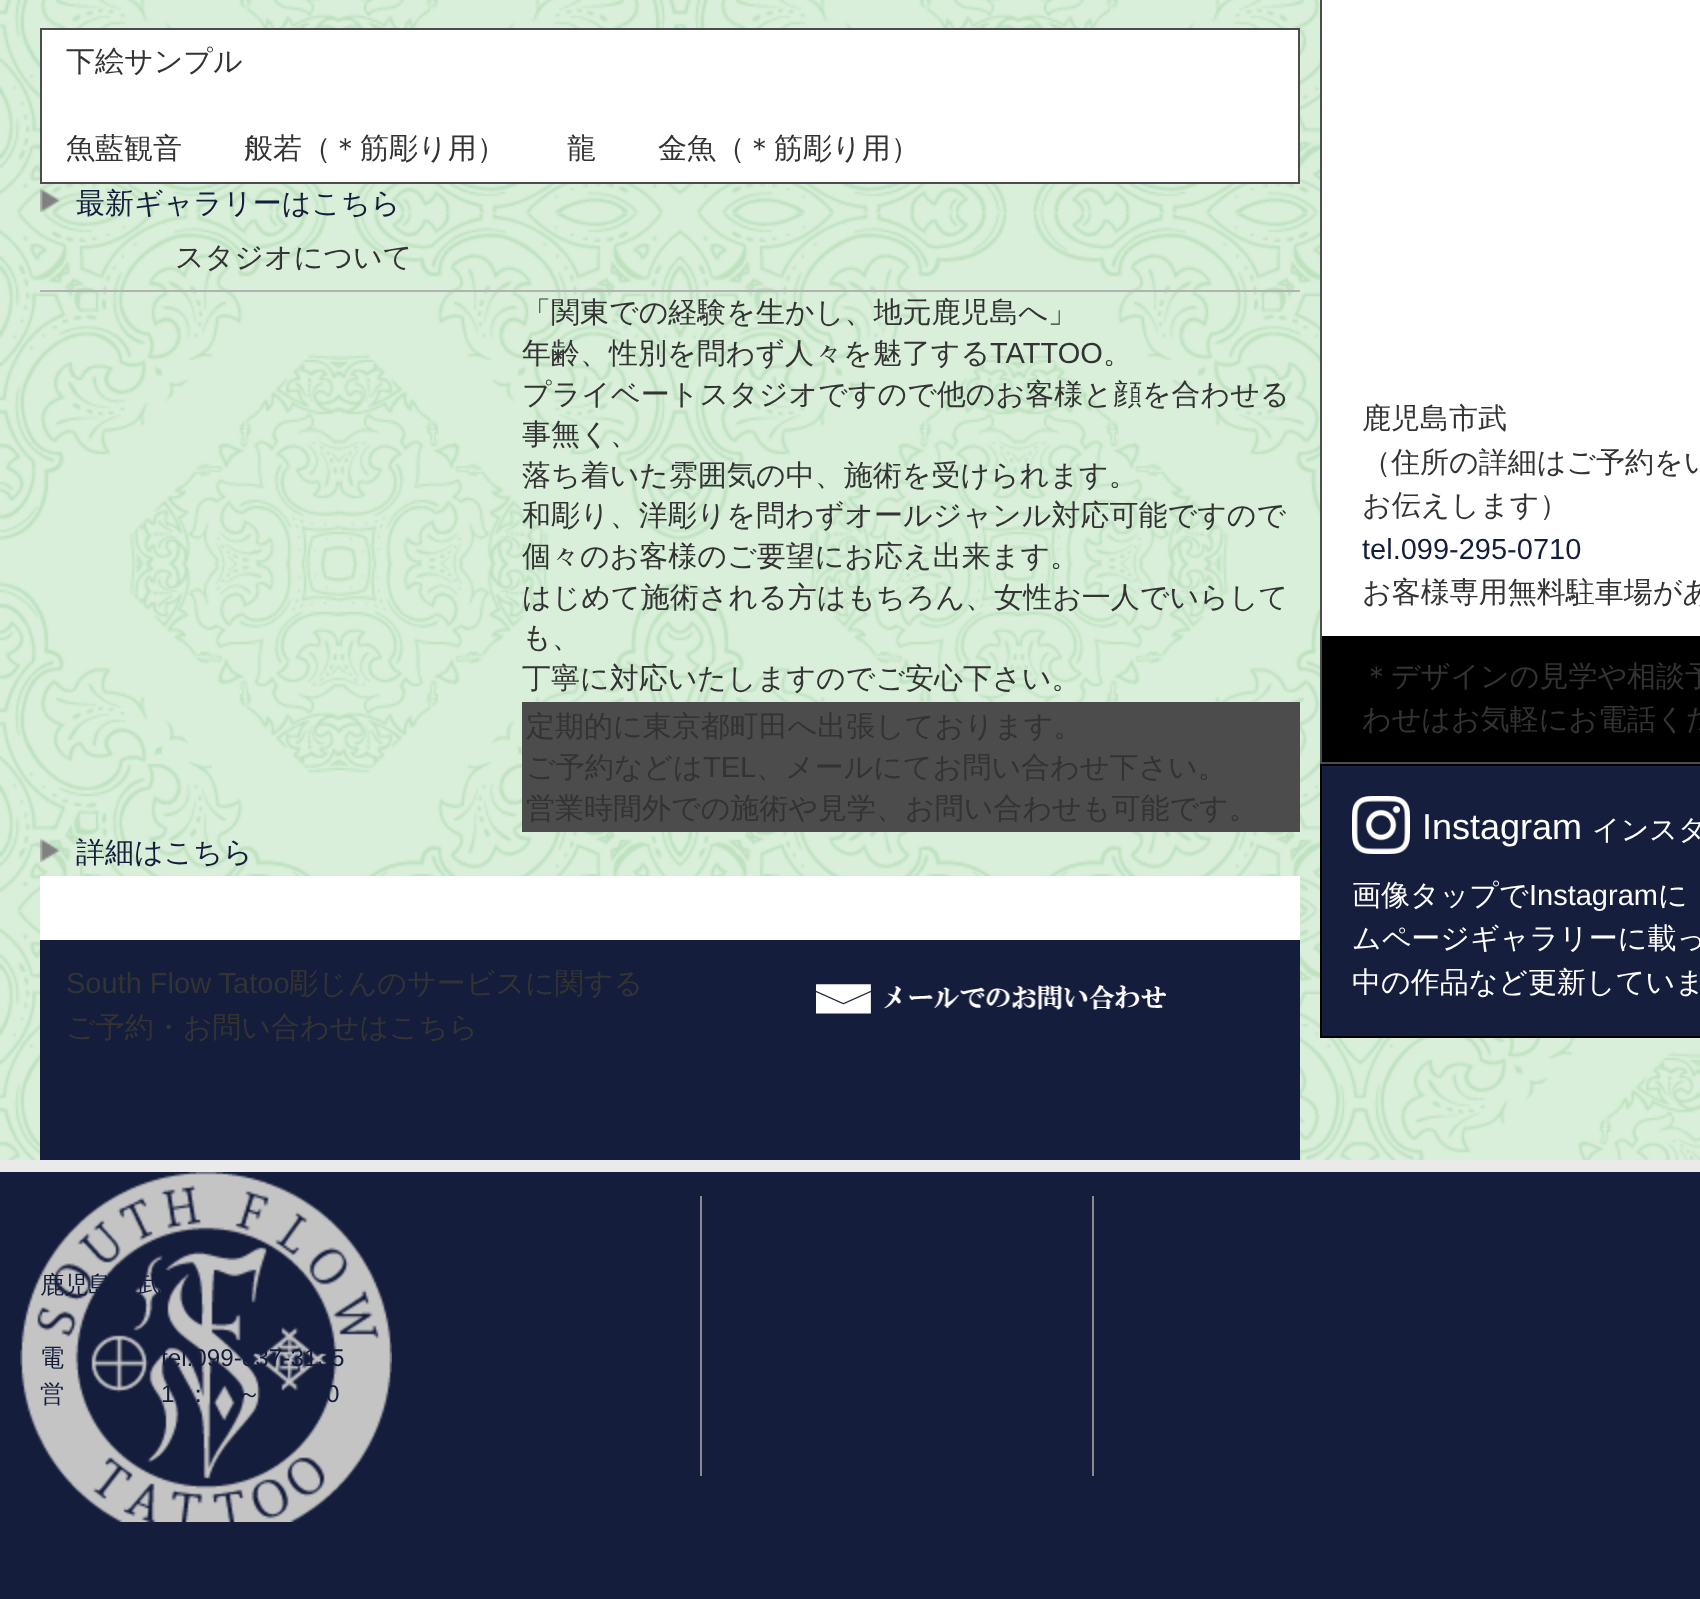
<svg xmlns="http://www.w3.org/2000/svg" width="1700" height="1599">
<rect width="100%" height="100%" fill="#eaeaea"/>
<rect width="1700" height="1160" fill="#d9efda"/>
<image x="0" y="0" width="1700" height="1160" href="media/1.png"/>
<rect x="41" y="29" width="1258" height="154" fill="#fff" stroke="#4c4c4c" stroke-width="2"/>
<text x="66" y="71" style="font-family:WenQuanYi Zen Hei;font-size:29px;font-weight:500;fill:#333">下絵サンプル</text>
<text x="66" y="158" style="font-family:WenQuanYi Zen Hei;font-size:29px;font-weight:500;fill:#333">魚藍観音</text>
<text x="244" y="158" style="font-family:WenQuanYi Zen Hei;font-size:29px;font-weight:500;fill:#333">般若（＊筋彫り用）</text>
<text x="567" y="158" style="font-family:WenQuanYi Zen Hei;font-size:29px;font-weight:500;fill:#333">龍</text>
<text x="658" y="158" style="font-family:WenQuanYi Zen Hei;font-size:29px;font-weight:500;fill:#333">金魚（＊筋彫り用）</text>
<image x="40" y="188" width="20" height="24" href="media/2.png"/>
<text x="76" y="213" style="font-family:WenQuanYi Zen Hei;font-size:29px;font-weight:500;fill:#151d3d">最新ギャラリーはこちら</text>
<rect x="40" y="290" width="1260" height="2" fill="#b2b2b2"/>
<text x="175" y="267" style="font-family:WenQuanYi Zen Hei;font-size:29px;font-weight:500;fill:#333">スタジオについて</text>
<text x="522" y="322" style="font-family:WenQuanYi Zen Hei;font-size:29px;font-weight:500;fill:#333">「関東での経験を生かし、地元鹿児島へ」</text>
<text x="522" y="363" style="font-family:WenQuanYi Zen Hei;font-size:29px;font-weight:500;fill:#333">年齢、性別を問わず人々を魅了する</text>
<text x="990" y="363" style="font-family:Liberation Sans;font-size:29px;fill:#333">TATTOO</text>
<text x="1103" y="363" style="font-family:WenQuanYi Zen Hei;font-size:29px;font-weight:500;fill:#333">。</text>
<text x="522" y="404" style="font-family:WenQuanYi Zen Hei;font-size:29px;font-weight:500;fill:#333">プライベートスタジオですので他のお客様と顔を合わせる</text>
<text x="522" y="444" style="font-family:WenQuanYi Zen Hei;font-size:29px;font-weight:500;fill:#333">事無く、</text>
<text x="522" y="485" style="font-family:WenQuanYi Zen Hei;font-size:29px;font-weight:500;fill:#333">落ち着いた雰囲気の中、施術を受けられます。</text>
<text x="522" y="525" style="font-family:WenQuanYi Zen Hei;font-size:29px;font-weight:500;fill:#333">和彫り、洋彫りを問わずオールジャンル対応可能ですので</text>
<text x="522" y="566" style="font-family:WenQuanYi Zen Hei;font-size:29px;font-weight:500;fill:#333">個々のお客様のご要望にお応え出来ます。</text>
<text x="522" y="607" style="font-family:WenQuanYi Zen Hei;font-size:29px;font-weight:500;fill:#333">はじめて施術される方はもちろん、女性お一人でいらして</text>
<text x="522" y="647" style="font-family:WenQuanYi Zen Hei;font-size:29px;font-weight:500;fill:#333">も、</text>
<text x="522" y="688" style="font-family:WenQuanYi Zen Hei;font-size:29px;font-weight:500;fill:#333">丁寧に対応いたしますのでご安心下さい。</text>
<rect x="522" y="702" width="778" height="130" fill="#4c4c4c"/>
<text x="526" y="736" style="font-family:WenQuanYi Zen Hei;font-size:29px;font-weight:500;fill:#333">定期的に東京都町田へ出張しております。</text>
<text x="526" y="777" style="font-family:WenQuanYi Zen Hei;font-size:29px;font-weight:500;fill:#333">ご予約などは</text>
<text x="703" y="777" style="font-family:Liberation Sans;font-size:29px;fill:#333">TEL</text>
<text x="756" y="777" style="font-family:WenQuanYi Zen Hei;font-size:29px;font-weight:500;fill:#333">、メールにてお問い合わせ下さい。</text>
<text x="526" y="818" style="font-family:WenQuanYi Zen Hei;font-size:29px;font-weight:500;fill:#333">営業時間外での施術や見学、お問い合わせも可能です。</text>
<image x="40" y="838" width="20" height="24" href="media/3.png"/>
<text x="76" y="862" style="font-family:WenQuanYi Zen Hei;font-size:29px;font-weight:500;fill:#151d3d">詳細はこちら</text>
<rect x="40" y="876" width="1260" height="64" fill="#fff"/>
<rect x="40" y="940" width="1260" height="220" fill="#151d3d"/>
<text x="66" y="993" style="font-family:Liberation Sans;font-size:29px;fill:#333">South Flow Tatoo</text>
<text x="289" y="993" style="font-family:WenQuanYi Zen Hei;font-size:29px;font-weight:500;fill:#333">彫じんのサービスに関する</text>
<text x="66" y="1037" style="font-family:WenQuanYi Zen Hei;font-size:29px;font-weight:500;fill:#333">ご予約・お問い合わせはこちら</text>
<image x="816" y="984" width="350" height="30" href="media/4.png"/>
<rect x="1322" width="378" height="636" fill="#fff"/>
<rect x="1321" y="-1" width="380" height="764" fill="none" stroke="#4c4c4c" stroke-width="2"/>
<text x="1362" y="428" style="font-family:WenQuanYi Zen Hei;font-size:29px;font-weight:500;fill:#333">鹿児島市武</text>
<text x="1362" y="472" style="font-family:WenQuanYi Zen Hei;font-size:29px;font-weight:500;fill:#333">（住所の詳細はご予約をい</text>
<text x="1362" y="515" style="font-family:WenQuanYi Zen Hei;font-size:29px;font-weight:500;fill:#333">お伝えします）</text>
<text x="1362" y="559" style="font-family:Liberation Sans;font-size:29px;fill:#151d3d">tel.099-295-0710</text>
<text x="1362" y="602" style="font-family:WenQuanYi Zen Hei;font-size:29px;font-weight:500;fill:#333">お客様専用無料駐車場があ</text>
<rect x="1322" y="636" width="378" height="126" fill="#000"/>
<text x="1362" y="686" style="font-family:WenQuanYi Zen Hei;font-size:29px;font-weight:500;fill:#333">＊デザインの見学や相談予</text>
<text x="1362" y="729" style="font-family:WenQuanYi Zen Hei;font-size:29px;font-weight:500;fill:#333">わせはお気軽にお電話くだ</text>
<rect x="1321" y="765" width="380" height="272" fill="#161e3e" stroke="#000" stroke-width="2"/>
<image x="1352" y="796" width="58" height="58" href="media/5.png"/>
<text x="1422" y="839" style="font-family:Liberation Sans;font-size:36px;fill:#fff">Instagram</text>
<text x="1592" y="839" style="font-family:WenQuanYi Zen Hei;font-size:28px;font-weight:500;fill:#fff">インスタ</text>
<text x="1352" y="905" style="font-family:WenQuanYi Zen Hei;font-size:29px;font-weight:500;fill:#fff">画像タップで</text>
<text x="1529" y="905" style="font-family:Liberation Sans;font-size:29px;fill:#fff">Instagram</text>
<text x="1658" y="905" style="font-family:WenQuanYi Zen Hei;font-size:29px;font-weight:500;fill:#fff">に</text>
<text x="1352" y="948" style="font-family:WenQuanYi Zen Hei;font-size:29px;font-weight:500;fill:#fff">ムページギャラリーに載っ</text>
<text x="1352" y="992" style="font-family:WenQuanYi Zen Hei;font-size:29px;font-weight:500;fill:#fff">中の作品など更新していま</text>
<rect y="1172" width="1700" height="427" fill="#151d3d"/>
<image x="20" y="1172" width="372" height="350" href="media/6.png"/>
<text x="40" y="1293" style="font-family:WenQuanYi Zen Hei;font-size:24.25px;font-weight:500;fill:#151d3d">鹿児島市武</text>
<text x="40" y="1366" style="font-family:WenQuanYi Zen Hei;font-size:24.25px;font-weight:500;fill:#151d3d">電</text>
<text x="161" y="1366" style="font-family:Liberation Sans;font-size:24.25px;fill:#151d3d">tel.099-837-3135</text>
<text x="40" y="1402" style="font-family:WenQuanYi Zen Hei;font-size:24.25px;font-weight:500;fill:#151d3d">営</text>
<text x="161" y="1402" style="font-family:Liberation Sans;font-size:24.25px;fill:#151d3d">1</text>
<text x="186" y="1402" style="font-family:WenQuanYi Zen Hei;font-size:24.25px;font-weight:500;fill:#151d3d">：</text>
<text x="237" y="1402" style="font-family:WenQuanYi Zen Hei;font-size:24.25px;font-weight:500;fill:#151d3d">～</text>
<text x="326" y="1402" style="font-family:Liberation Sans;font-size:24.25px;fill:#151d3d">0</text>
<rect x="700" y="1196" width="2" height="280" fill="#898989"/>
<rect x="1092" y="1196" width="2" height="280" fill="#898989"/>
</svg>
